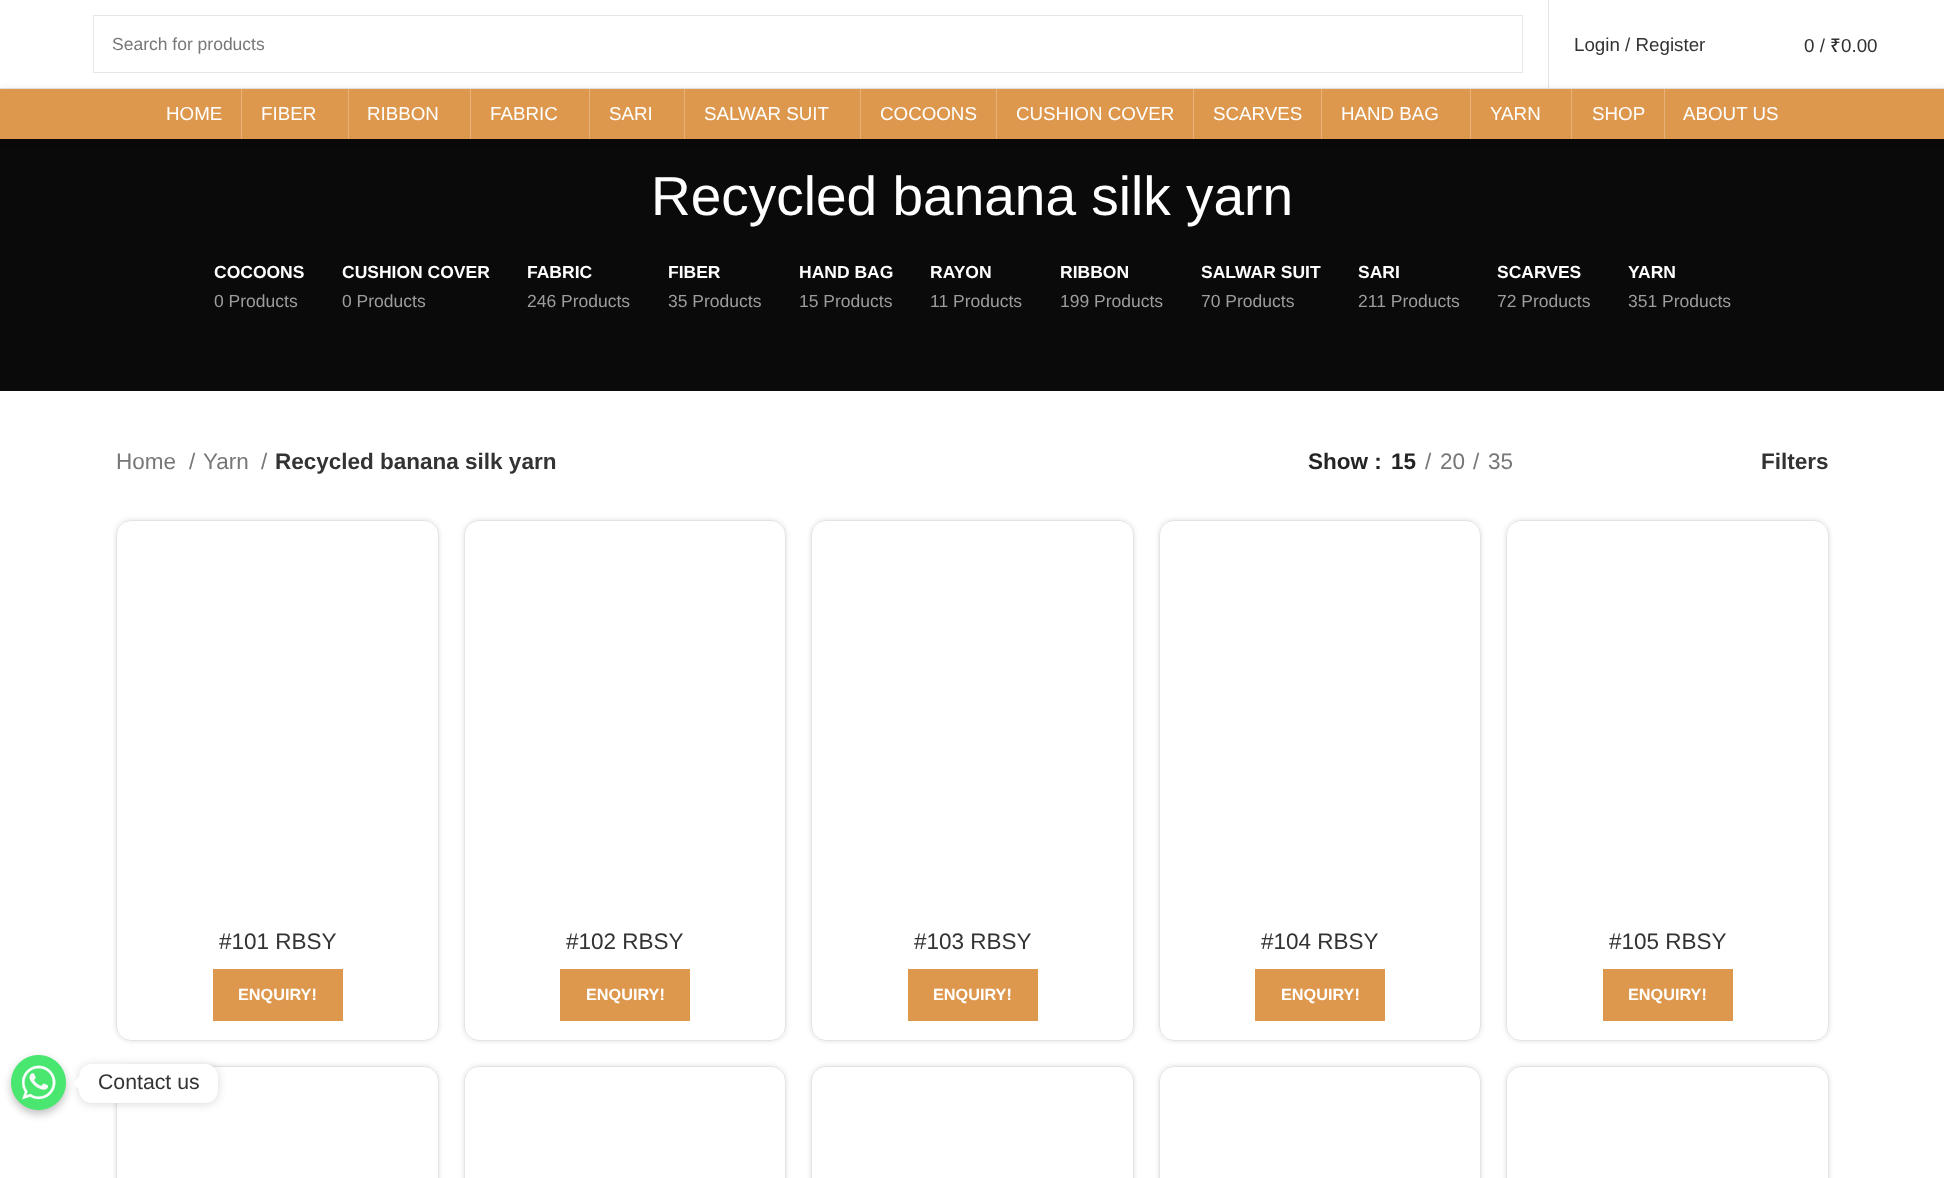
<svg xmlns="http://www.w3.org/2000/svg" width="1944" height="1178">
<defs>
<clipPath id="clip1"><path d="M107 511h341v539h-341zm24 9h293c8.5 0 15 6.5 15 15v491c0 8.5-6.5 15-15 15h-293c-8.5 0-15-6.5-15-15v-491c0-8.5 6.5-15 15-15z" clip-rule="evenodd"/></clipPath>
<clipPath id="clip2"><path d="M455 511h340v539h-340zm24 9h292c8.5 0 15 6.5 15 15v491c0 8.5-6.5 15-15 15h-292c-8.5 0-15-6.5-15-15v-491c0-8.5 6.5-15 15-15z" clip-rule="evenodd"/></clipPath>
<clipPath id="clip3"><path d="M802 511h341v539h-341zm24 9h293c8.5 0 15 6.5 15 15v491c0 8.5-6.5 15-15 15h-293c-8.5 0-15-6.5-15-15v-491c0-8.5 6.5-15 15-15z" clip-rule="evenodd"/></clipPath>
<clipPath id="clip4"><path d="M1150 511h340v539h-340zm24 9h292c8.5 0 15 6.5 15 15v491c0 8.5-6.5 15-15 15h-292c-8.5 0-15-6.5-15-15v-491c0-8.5 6.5-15 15-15z" clip-rule="evenodd"/></clipPath>
<clipPath id="clip5"><path d="M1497 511h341v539h-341zm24 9h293c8.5 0 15 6.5 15 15v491c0 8.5-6.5 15-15 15h-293c-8.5 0-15-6.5-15-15v-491c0-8.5 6.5-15 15-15z" clip-rule="evenodd"/></clipPath>
<clipPath id="clip6"><path d="M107 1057h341v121h-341zm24 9h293c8.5 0 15 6.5 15 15v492c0 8.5-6.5 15-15 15h-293c-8.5 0-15-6.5-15-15v-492c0-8.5 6.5-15 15-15z" clip-rule="evenodd"/></clipPath>
<clipPath id="clip7"><path d="M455 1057h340v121h-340zm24 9h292c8.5 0 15 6.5 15 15v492c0 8.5-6.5 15-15 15h-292c-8.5 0-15-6.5-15-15v-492c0-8.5 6.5-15 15-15z" clip-rule="evenodd"/></clipPath>
<clipPath id="clip8"><path d="M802 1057h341v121h-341zm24 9h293c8.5 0 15 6.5 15 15v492c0 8.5-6.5 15-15 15h-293c-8.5 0-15-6.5-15-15v-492c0-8.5 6.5-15 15-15z" clip-rule="evenodd"/></clipPath>
<clipPath id="clip9"><path d="M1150 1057h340v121h-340zm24 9h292c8.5 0 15 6.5 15 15v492c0 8.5-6.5 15-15 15h-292c-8.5 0-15-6.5-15-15v-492c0-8.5 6.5-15 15-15z" clip-rule="evenodd"/></clipPath>
<clipPath id="clip10"><path d="M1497 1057h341v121h-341zm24 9h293c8.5 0 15 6.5 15 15v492c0 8.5-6.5 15-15 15h-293c-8.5 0-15-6.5-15-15v-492c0-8.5 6.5-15 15-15z" clip-rule="evenodd"/></clipPath>
</defs>
<rect width="100%" height="100%" fill="#fff"/>
<rect y="88" width="1944" height="1" fill="#e6e6e6"/>
<rect x="93.5" y="15.5" width="1429" height="57" fill="none" stroke="#e6e6e6"/>
<text x="112" y="50" style="font-family:Liberation Sans;font-size:17.5px;fill:#777">Search for products</text>
<rect y="139" width="1944" height="252" fill="#0a0a0a"/>
<rect y="90" width="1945" height="50" fill="#0000001a" filter="blur(5px)"/>
<rect x="1548" width="1" height="88" fill="#0000001c"/>
<text x="1574" y="51" style="font-family:Liberation Sans;font-size:18.75px;fill:#333">Login / Register</text>
<text x="1804" y="52" style="font-family:Liberation Sans;font-size:18.75px;fill:#333">0 /</text>
<text x="1830" y="52" style="font-family:Noto Sans;font-size:18.75px;font-weight:500;fill:#333">₹</text>
<text x="1841" y="52" style="font-family:Liberation Sans;font-size:18.75px;fill:#333">0.00</text>
<rect y="89" width="1944" height="50" fill="#de984d"/>
<text x="166" y="120" style="font-family:Liberation Sans;font-size:18.75px;fill:#fff">HOME</text>
<rect x="241" y="89" width="1" height="50" fill="#e6b27a"/>
<text x="261" y="120" style="font-family:Liberation Sans;font-size:18.75px;fill:#fff">FIBER</text>
<rect x="348" y="89" width="1" height="50" fill="#e6b27a"/>
<text x="367" y="120" style="font-family:Liberation Sans;font-size:18.75px;fill:#fff">RIBBON</text>
<rect x="470" y="89" width="1" height="50" fill="#e6b27a"/>
<text x="490" y="120" style="font-family:Liberation Sans;font-size:18.75px;fill:#fff">FABRIC</text>
<rect x="589" y="89" width="1" height="50" fill="#e6b27a"/>
<text x="609" y="120" style="font-family:Liberation Sans;font-size:18.75px;fill:#fff">SARI</text>
<rect x="684" y="89" width="1" height="50" fill="#e6b27a"/>
<text x="704" y="120" style="font-family:Liberation Sans;font-size:18.75px;fill:#fff">SALWAR SUIT</text>
<rect x="860" y="89" width="1" height="50" fill="#e6b27a"/>
<text x="880" y="120" style="font-family:Liberation Sans;font-size:18.75px;fill:#fff">COCOONS</text>
<rect x="996" y="89" width="1" height="50" fill="#e6b27a"/>
<text x="1016" y="120" style="font-family:Liberation Sans;font-size:18.75px;fill:#fff">CUSHION COVER</text>
<rect x="1193" y="89" width="1" height="50" fill="#e6b27a"/>
<text x="1213" y="120" style="font-family:Liberation Sans;font-size:18.75px;fill:#fff">SCARVES</text>
<rect x="1321" y="89" width="1" height="50" fill="#e6b27a"/>
<text x="1341" y="120" style="font-family:Liberation Sans;font-size:18.75px;fill:#fff">HAND BAG</text>
<rect x="1470" y="89" width="1" height="50" fill="#e6b27a"/>
<text x="1490" y="120" style="font-family:Liberation Sans;font-size:18.75px;fill:#fff">YARN</text>
<rect x="1571" y="89" width="1" height="50" fill="#e6b27a"/>
<text x="1592" y="120" style="font-family:Liberation Sans;font-size:18.75px;fill:#fff">SHOP</text>
<rect x="1664" y="89" width="1" height="50" fill="#e6b27a"/>
<text x="1683" y="120" style="font-family:Liberation Sans;font-size:18.75px;fill:#fff">ABOUT US</text>
<text x="651" y="215" style="font-family:Liberation Sans;font-size:55px;fill:#fff">Recycled banana silk yarn</text>
<text x="214" y="278" style="font-family:Liberation Sans;font-size:17.5px;font-weight:bold;fill:#fff">COCOONS</text>
<text x="214" y="307" style="font-family:Liberation Sans;font-size:17.5px;fill:#9d9d9d">0 Products</text>
<text x="342" y="278" style="font-family:Liberation Sans;font-size:17.5px;font-weight:bold;fill:#fff">CUSHION COVER</text>
<text x="342" y="307" style="font-family:Liberation Sans;font-size:17.5px;fill:#9d9d9d">0 Products</text>
<text x="527" y="278" style="font-family:Liberation Sans;font-size:17.5px;font-weight:bold;fill:#fff">FABRIC</text>
<text x="527" y="307" style="font-family:Liberation Sans;font-size:17.5px;fill:#9d9d9d">246 Products</text>
<text x="668" y="278" style="font-family:Liberation Sans;font-size:17.5px;font-weight:bold;fill:#fff">FIBER</text>
<text x="668" y="307" style="font-family:Liberation Sans;font-size:17.5px;fill:#9d9d9d">35 Products</text>
<text x="799" y="278" style="font-family:Liberation Sans;font-size:17.5px;font-weight:bold;fill:#fff">HAND BAG</text>
<text x="799" y="307" style="font-family:Liberation Sans;font-size:17.5px;fill:#9d9d9d">15 Products</text>
<text x="930" y="278" style="font-family:Liberation Sans;font-size:17.5px;font-weight:bold;fill:#fff">RAYON</text>
<text x="930" y="307" style="font-family:Liberation Sans;font-size:17.5px;fill:#9d9d9d">11 Products</text>
<text x="1060" y="278" style="font-family:Liberation Sans;font-size:17.5px;font-weight:bold;fill:#fff">RIBBON</text>
<text x="1060" y="307" style="font-family:Liberation Sans;font-size:17.5px;fill:#9d9d9d">199 Products</text>
<text x="1201" y="278" style="font-family:Liberation Sans;font-size:17.5px;font-weight:bold;fill:#fff">SALWAR SUIT</text>
<text x="1201" y="307" style="font-family:Liberation Sans;font-size:17.5px;fill:#9d9d9d">70 Products</text>
<text x="1358" y="278" style="font-family:Liberation Sans;font-size:17.5px;font-weight:bold;fill:#fff">SARI</text>
<text x="1358" y="307" style="font-family:Liberation Sans;font-size:17.5px;fill:#9d9d9d">211 Products</text>
<text x="1497" y="278" style="font-family:Liberation Sans;font-size:17.5px;font-weight:bold;fill:#fff">SCARVES</text>
<text x="1497" y="307" style="font-family:Liberation Sans;font-size:17.5px;fill:#9d9d9d">72 Products</text>
<text x="1628" y="278" style="font-family:Liberation Sans;font-size:17.5px;font-weight:bold;fill:#fff">YARN</text>
<text x="1628" y="307" style="font-family:Liberation Sans;font-size:17.5px;fill:#9d9d9d">351 Products</text>
<text x="116" y="469" style="font-family:Liberation Sans;font-size:22.5px;fill:#777">Home</text>
<text x="189" y="469" style="font-family:Liberation Sans;font-size:22.5px;fill:#777">/</text>
<text x="203" y="469" style="font-family:Liberation Sans;font-size:22.5px;fill:#777">Yarn</text>
<text x="261" y="469" style="font-family:Liberation Sans;font-size:22.5px;fill:#777">/</text>
<text x="275" y="469" style="font-family:Liberation Sans;font-size:22.5px;font-weight:bold;fill:#333">Recycled banana silk yarn</text>
<text x="1308" y="469" style="font-family:Liberation Sans;font-size:22.5px;font-weight:bold;fill:#242424">Show :</text>
<text x="1391" y="469" style="font-family:Liberation Sans;font-size:22.5px;font-weight:bold;fill:#242424">15</text>
<text x="1425" y="469" style="font-family:Liberation Sans;font-size:22.5px;fill:#777">/</text>
<text x="1440" y="469" style="font-family:Liberation Sans;font-size:22.5px;fill:#777">20</text>
<text x="1473" y="469" style="font-family:Liberation Sans;font-size:22.5px;fill:#777">/</text>
<text x="1488" y="469" style="font-family:Liberation Sans;font-size:22.5px;fill:#777">35</text>
<text x="1761" y="469" style="font-family:Liberation Sans;font-size:22.5px;font-weight:bold;fill:#333">Filters</text>
<g clip-path="url(#clip1)">
<rect x="116" y="520" width="323" height="521" rx="15" fill="#0000001f" filter="blur(2.5px)"/>
</g>
<rect x="116.5" y="520.5" width="322" height="520" rx="14.5" fill="none" stroke="#0000001c"/>
<text x="219" y="949" style="font-family:Liberation Sans;font-size:22.5px;fill:#333">#101 RBSY</text>
<rect x="213" y="969" width="130" height="52" fill="#de984d"/>
<text x="238" y="1000" style="font-family:Liberation Sans;font-size:16.25px;font-weight:bold;fill:#fff">ENQUIRY!</text>
<g clip-path="url(#clip2)">
<rect x="464" y="520" width="322" height="521" rx="15" fill="#0000001f" filter="blur(2.5px)"/>
</g>
<rect x="464.5" y="520.5" width="321" height="520" rx="14.5" fill="none" stroke="#0000001c"/>
<text x="566" y="949" style="font-family:Liberation Sans;font-size:22.5px;fill:#333">#102 RBSY</text>
<rect x="560" y="969" width="130" height="52" fill="#de984d"/>
<text x="586" y="1000" style="font-family:Liberation Sans;font-size:16.25px;font-weight:bold;fill:#fff">ENQUIRY!</text>
<g clip-path="url(#clip3)">
<rect x="811" y="520" width="323" height="521" rx="15" fill="#0000001f" filter="blur(2.5px)"/>
</g>
<rect x="811.5" y="520.5" width="322" height="520" rx="14.5" fill="none" stroke="#0000001c"/>
<text x="914" y="949" style="font-family:Liberation Sans;font-size:22.5px;fill:#333">#103 RBSY</text>
<rect x="908" y="969" width="130" height="52" fill="#de984d"/>
<text x="933" y="1000" style="font-family:Liberation Sans;font-size:16.25px;font-weight:bold;fill:#fff">ENQUIRY!</text>
<g clip-path="url(#clip4)">
<rect x="1159" y="520" width="322" height="521" rx="15" fill="#0000001f" filter="blur(2.5px)"/>
</g>
<rect x="1159.5" y="520.5" width="321" height="520" rx="14.5" fill="none" stroke="#0000001c"/>
<text x="1261" y="949" style="font-family:Liberation Sans;font-size:22.5px;fill:#333">#104 RBSY</text>
<rect x="1255" y="969" width="130" height="52" fill="#de984d"/>
<text x="1281" y="1000" style="font-family:Liberation Sans;font-size:16.25px;font-weight:bold;fill:#fff">ENQUIRY!</text>
<g clip-path="url(#clip5)">
<rect x="1506" y="520" width="323" height="521" rx="15" fill="#0000001f" filter="blur(2.5px)"/>
</g>
<rect x="1506.5" y="520.5" width="322" height="520" rx="14.5" fill="none" stroke="#0000001c"/>
<text x="1609" y="949" style="font-family:Liberation Sans;font-size:22.5px;fill:#333">#105 RBSY</text>
<rect x="1603" y="969" width="130" height="52" fill="#de984d"/>
<text x="1628" y="1000" style="font-family:Liberation Sans;font-size:16.25px;font-weight:bold;fill:#fff">ENQUIRY!</text>
<g clip-path="url(#clip6)">
<rect x="116" y="1066" width="323" height="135" rx="15" fill="#0000001f" filter="blur(2.5px)"/>
</g>
<rect x="116.5" y="1066.5" width="322" height="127" rx="14.5" fill="none" stroke="#0000001c"/>
<g clip-path="url(#clip7)">
<rect x="464" y="1066" width="322" height="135" rx="15" fill="#0000001f" filter="blur(2.5px)"/>
</g>
<rect x="464.5" y="1066.5" width="321" height="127" rx="14.5" fill="none" stroke="#0000001c"/>
<g clip-path="url(#clip8)">
<rect x="811" y="1066" width="323" height="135" rx="15" fill="#0000001f" filter="blur(2.5px)"/>
</g>
<rect x="811.5" y="1066.5" width="322" height="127" rx="14.5" fill="none" stroke="#0000001c"/>
<g clip-path="url(#clip9)">
<rect x="1159" y="1066" width="322" height="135" rx="15" fill="#0000001f" filter="blur(2.5px)"/>
</g>
<rect x="1159.5" y="1066.5" width="321" height="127" rx="14.5" fill="none" stroke="#0000001c"/>
<g clip-path="url(#clip10)">
<rect x="1506" y="1066" width="323" height="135" rx="15" fill="#0000001f" filter="blur(2.5px)"/>
</g>
<rect x="1506.5" y="1066.5" width="322" height="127" rx="14.5" fill="none" stroke="#0000001c"/>
<rect x="11" y="1059" width="55" height="55" rx="27.5" fill="#00000040" filter="blur(4px)"/>
<image x="11" y="1055" width="55" height="55" href="media/1.png"/>
<rect x="79" y="1065" width="139" height="39" rx="13" fill="#00000026" filter="blur(5px)"/>
<rect x="79" y="1064" width="139" height="39" rx="13" fill="#fff"/>
<path d="M79 1077v12.5l-6.5-6.5z" fill="#fff"/>
<text x="98" y="1089" style="font-family:Liberation Sans;font-size:21.25px;fill:#333">Contact us</text>
</svg>
